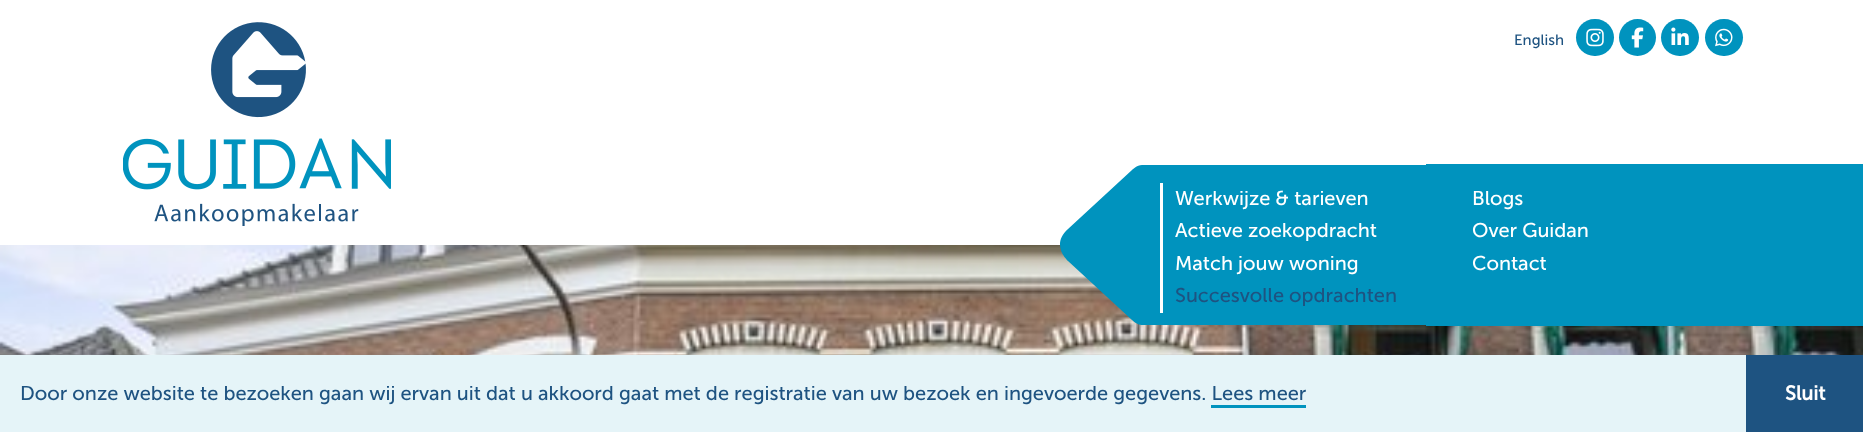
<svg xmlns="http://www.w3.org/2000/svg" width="1863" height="432">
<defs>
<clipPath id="clip1"><rect x="1060" y="165" width="698" height="160"/></clipPath>
</defs>
<rect width="100%" height="100%" fill="#fff"/>
<image x="123" y="22" width="268" height="204" href="media/1.png"/>
<text x="1514" y="45" style="font-family:Museo Sans;font-size:15px;fill:#1e5381">English</text>
<rect x="1576" y="19" width="38" height="37" rx="18.5" fill="#0093be"/>
<image x="1586" y="28" width="18" height="19" href="media/2.png"/>
<circle cx="1637.5" cy="37.5" r="18.5" fill="#0093be"/>
<image x="1631" y="27" width="13" height="21" href="media/3.png"/>
<rect x="1661" y="19" width="38" height="37" rx="18.5" fill="#0093be"/>
<image x="1671" y="27" width="18" height="18" href="media/4.png"/>
<rect x="1705" y="19" width="38" height="37" rx="18.5" fill="#0093be"/>
<image x="1715" y="28" width="18" height="19" href="media/5.png"/>
<image x="0" y="245" width="1863" height="110" href="media/6.png"/>
<rect x="1426" y="164" width="437" height="162" fill="#0093be"/>
<g clip-path="url(#clip1)">
<path d="M1142 165c-5 0-10 5-10 5l-64 59c-18 16 0 32 0 32l64 59c4 4 8 5 10 5h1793v-160z" fill="#0093be"/>
</g>
<rect x="1160" y="183" width="3" height="130" fill="#fff"/>
<text x="1175" y="205" style="font-family:Museo Sans;font-size:20px;fill:#fff">Werkwijze &amp; tarieven</text>
<text x="1472" y="205" style="font-family:Museo Sans;font-size:20px;fill:#fff">Blogs</text>
<text x="1175" y="237" style="font-family:Museo Sans;font-size:20px;fill:#fff">Actieve zoekopdracht</text>
<text x="1472" y="237" style="font-family:Museo Sans;font-size:20px;fill:#fff">Over Guidan</text>
<text x="1175" y="270" style="font-family:Museo Sans;font-size:20px;fill:#fff">Match jouw woning</text>
<text x="1472" y="270" style="font-family:Museo Sans;font-size:20px;fill:#fff">Contact</text>
<text x="1175" y="302" style="font-family:Museo Sans;font-size:20px;fill:#1e5381">Succesvolle opdrachten</text>
<rect y="355" width="1746" height="77" fill="#e5f4f8"/>
<text x="20" y="400" style="font-family:Museo Sans;font-size:20px;fill:#1e5381">Door onze website te bezoeken gaan wij ervan uit dat u akkoord gaat met de registratie van uw bezoek en ingevoerde gegevens. Lees meer</text>
<rect x="1211" y="405" width="95" height="3" fill="#0093be"/>
<rect x="1746" y="355" width="117" height="77" fill="#1e5381"/>
<text x="1785" y="400" style="font-family:Museo Sans;font-size:20px;font-weight:bold;fill:#fff">Sluit</text>
</svg>
